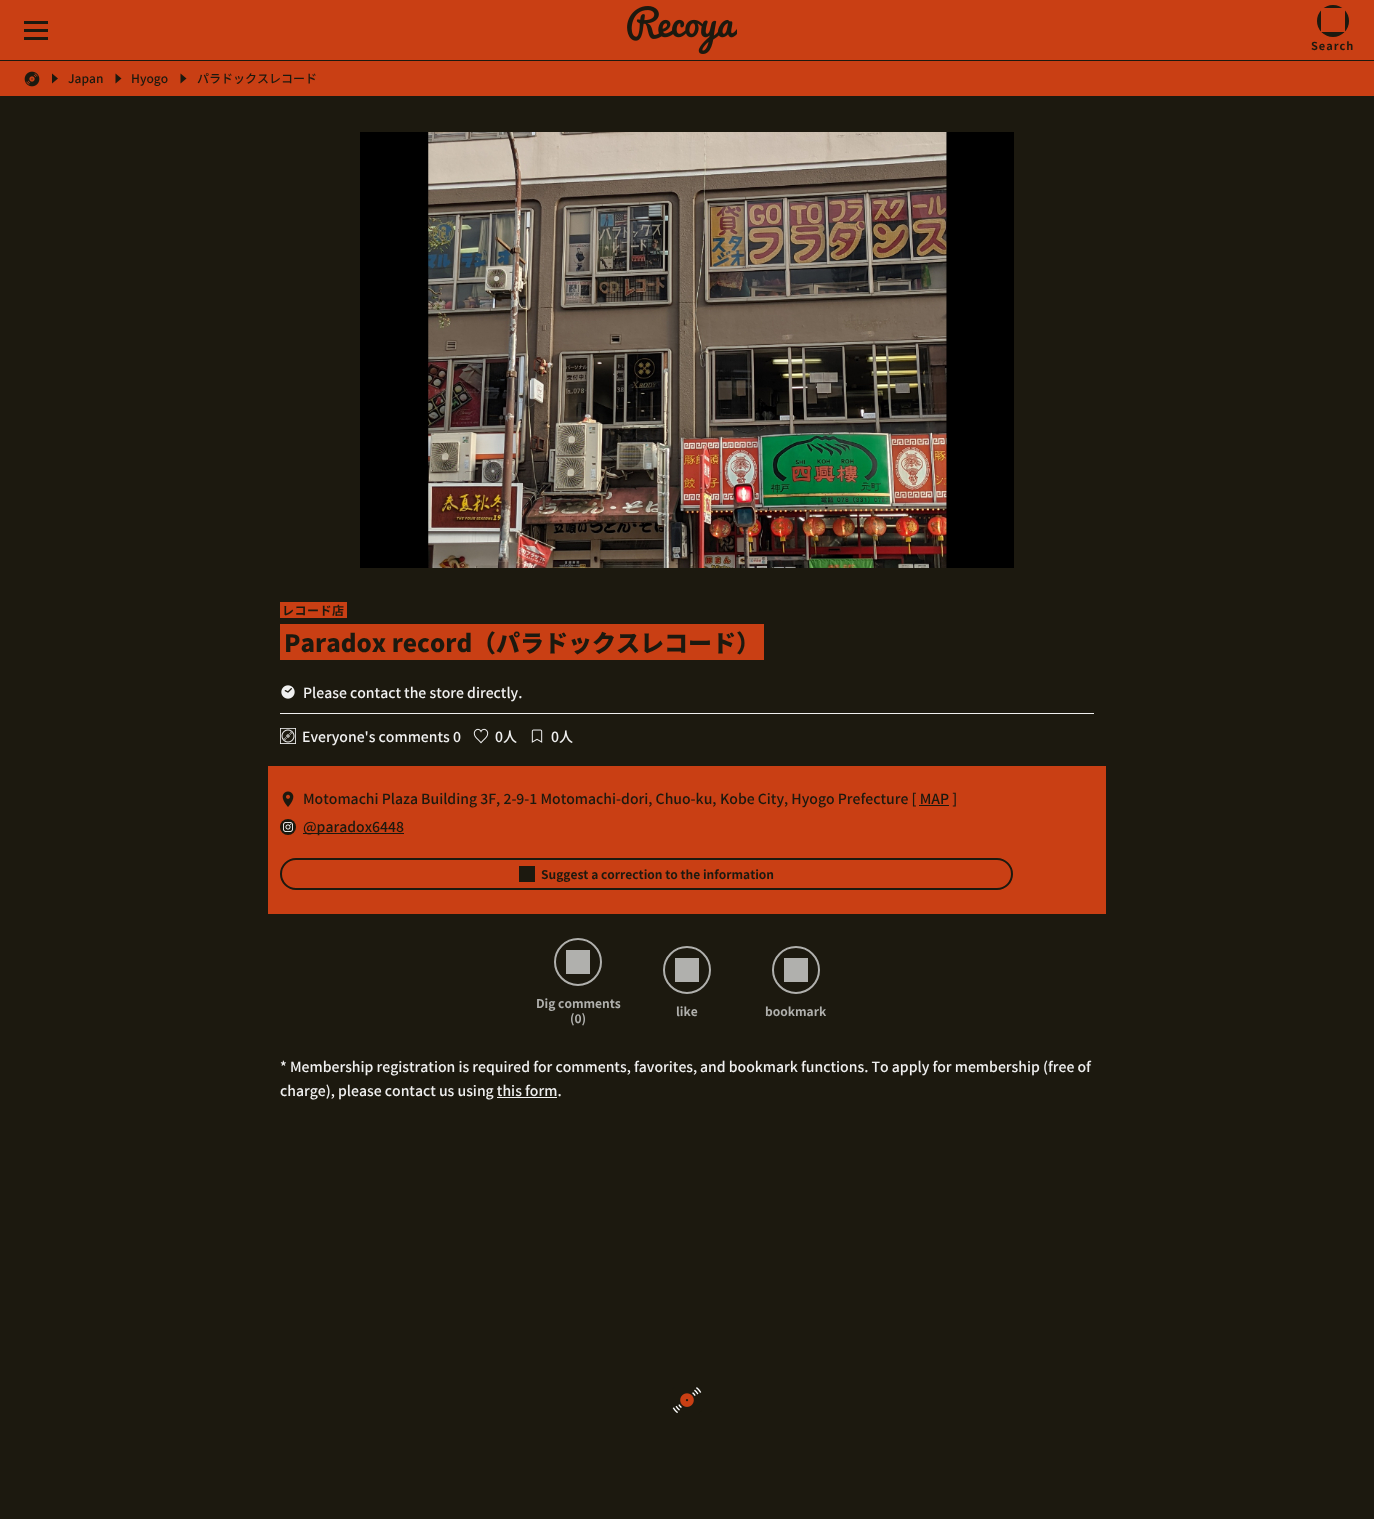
<svg xmlns="http://www.w3.org/2000/svg" width="1374" height="1519">
<style>*{font-kerning:none!important;font-variant-ligatures:none!important}</style>
<rect width="100%" height="100%" fill="#1c190f"/>
<rect width="1374" height="60" fill="#c93f14"/>
<rect x="24" y="21" width="24" height="3" fill="#1c190f"/>
<rect x="24" y="29" width="24" height="3" fill="#1c190f"/>
<rect x="24" y="37" width="24" height="3" fill="#1c190f"/>
<image x="627" y="6" width="110" height="48" href="media/1.png"/>
<circle cx="1333" cy="21" r="16" fill="#1c190f"/>
<rect x="1321" y="8" width="24" height="24" fill="#c93f14"/>
<text x="1311" y="50" style="font-family:Noto Sans JP;font-size:11px;font-weight:bold;letter-spacing:1px;fill:#1c190f">Search</text>
<rect y="61" width="1374" height="35" fill="#c93f14"/>
<image x="24" y="71" width="16" height="16" href="media/2.png"/>
<path d="M52 73.5l6 5l-6 5z" fill="#1c190f"/>
<text x="68" y="83" style="font-family:Noto Sans JP;font-size:12px;font-weight:500;fill:#1c190f">Japan</text>
<path d="M115.5 73.5l6 5l-6 5z" fill="#1c190f"/>
<text x="131" y="83" style="font-family:Noto Sans JP;font-size:12px;font-weight:500;fill:#1c190f">Hyogo</text>
<path d="M180.5 73.5l6 5l-6 5z" fill="#1c190f"/>
<text x="197" y="83" style="font-family:Noto Sans JP;font-size:12px;font-weight:500;fill:#1c190f">パラドックスレコード</text>
<image x="360" y="132" width="654" height="436" href="media/3.png"/>
<rect x="280" y="602" width="67" height="16" fill="#c93f14"/>
<text x="282" y="615" style="font-family:Noto Sans JP;font-size:12px;font-weight:bold;letter-spacing:0.5px;fill:#1c190f">レコード店</text>
<rect x="280" y="624" width="484" height="36" fill="#c93f14"/>
<text x="284" y="652" style="font-family:Noto Sans JP;font-size:24px;font-weight:900;fill:#1c190f">Paradox record</text>
<text x="472" y="652" style="font-family:Noto Sans JP;font-size:24px;font-weight:900;fill:#1c190f">（パラドックスレコード）</text>
<rect x="280" y="713" width="814" height="1" fill="#f0f0f0"/>
<image x="281" y="685" width="14" height="14" href="media/4.png"/>
<text x="303" y="698" style="font-family:Noto Sans JP;font-size:14px;font-weight:500;fill:#f0f0f0">Please contact the store directly.</text>
<image x="280" y="728" width="16" height="16" href="media/5.png"/>
<text x="302" y="742" style="font-family:Noto Sans JP;font-size:14px;font-weight:500;fill:#f0f0f0">Everyone's comments 0</text>
<image x="473" y="728" width="16" height="16" href="media/6.png"/>
<text x="495" y="742" style="font-family:Noto Sans JP;font-size:14px;font-weight:500;fill:#f0f0f0">0人</text>
<image x="531" y="729" width="12" height="14" href="media/7.png"/>
<text x="551" y="742" style="font-family:Noto Sans JP;font-size:14px;font-weight:500;fill:#f0f0f0">0人</text>
<rect x="268" y="766" width="838" height="148" fill="#c93f14"/>
<image x="282" y="791" width="12" height="16" href="media/8.png"/>
<text x="303" y="804" style="font-family:Noto Sans JP;font-size:14px;font-weight:500;fill:#1c190f">Motomachi Plaza Building 3F, 2-9-1 Motomachi-dori, Chuo-ku,</text>
<text x="720" y="804" style="font-family:Noto Sans JP;font-size:14px;font-weight:500;fill:#1c190f">Kobe City, Hyogo Prefecture [ MAP ]</text>
<rect x="919" y="805" width="30" height="1" fill="#1c190f"/>
<circle cx="288" cy="827" r="8" fill="#1c190f"/>
<image x="283" y="822" width="10" height="10" href="media/9.png"/>
<rect x="303" y="833" width="101" height="1" fill="#1c190f"/>
<text x="303" y="832" style="font-family:Noto Sans JP;font-size:14px;font-weight:500;fill:#1c190f">@paradox6448</text>
<rect x="281" y="859" width="731" height="30" rx="15" fill="none" stroke="#1c190f" stroke-width="2"/>
<rect x="519" y="866" width="16" height="16" fill="#1c190f"/>
<text x="541" y="879" style="font-family:Noto Sans JP;font-size:12px;font-weight:bold;fill:#1c190f">Suggest a correction to the information</text>
<circle cx="578" cy="962" r="23" fill="none" stroke="#b0b0ad" stroke-width="2"/>
<rect x="566" y="950" width="24" height="24" fill="#b0b0ad"/>
<text x="536" y="1008" style="font-family:Noto Sans JP;font-size:12px;font-weight:bold;fill:#b0b0ad">Dig comments</text>
<text x="570" y="1023" style="font-family:Noto Sans JP;font-size:12px;font-weight:bold;fill:#b0b0ad">(0)</text>
<circle cx="687" cy="970" r="23" fill="none" stroke="#b0b0ad" stroke-width="2"/>
<rect x="675" y="958" width="24" height="24" fill="#b0b0ad"/>
<text x="676" y="1016" style="font-family:Noto Sans JP;font-size:12px;font-weight:bold;fill:#b0b0ad">like</text>
<circle cx="796" cy="970" r="23" fill="none" stroke="#b0b0ad" stroke-width="2"/>
<rect x="784" y="958" width="24" height="24" fill="#b0b0ad"/>
<text x="765" y="1016" style="font-family:Noto Sans JP;font-size:12px;font-weight:bold;fill:#b0b0ad">bookmark</text>
<text x="280" y="1072" style="font-family:Noto Sans JP;font-size:14px;font-weight:500;fill:#f0f0f0">* Membership registration is required for comments, favorites,</text>
<text x="700" y="1072" style="font-family:Noto Sans JP;font-size:14px;font-weight:500;fill:#f0f0f0">and bookmark functions. To apply for membership (free of</text>
<text x="280" y="1096" style="font-family:Noto Sans JP;font-size:14px;font-weight:500;fill:#f0f0f0">charge), please contact us using this form.</text>
<rect x="497" y="1097" width="60" height="1" fill="#f0f0f0"/>
<image x="672" y="1387" width="30" height="27" href="media/10.png"/>
</svg>
